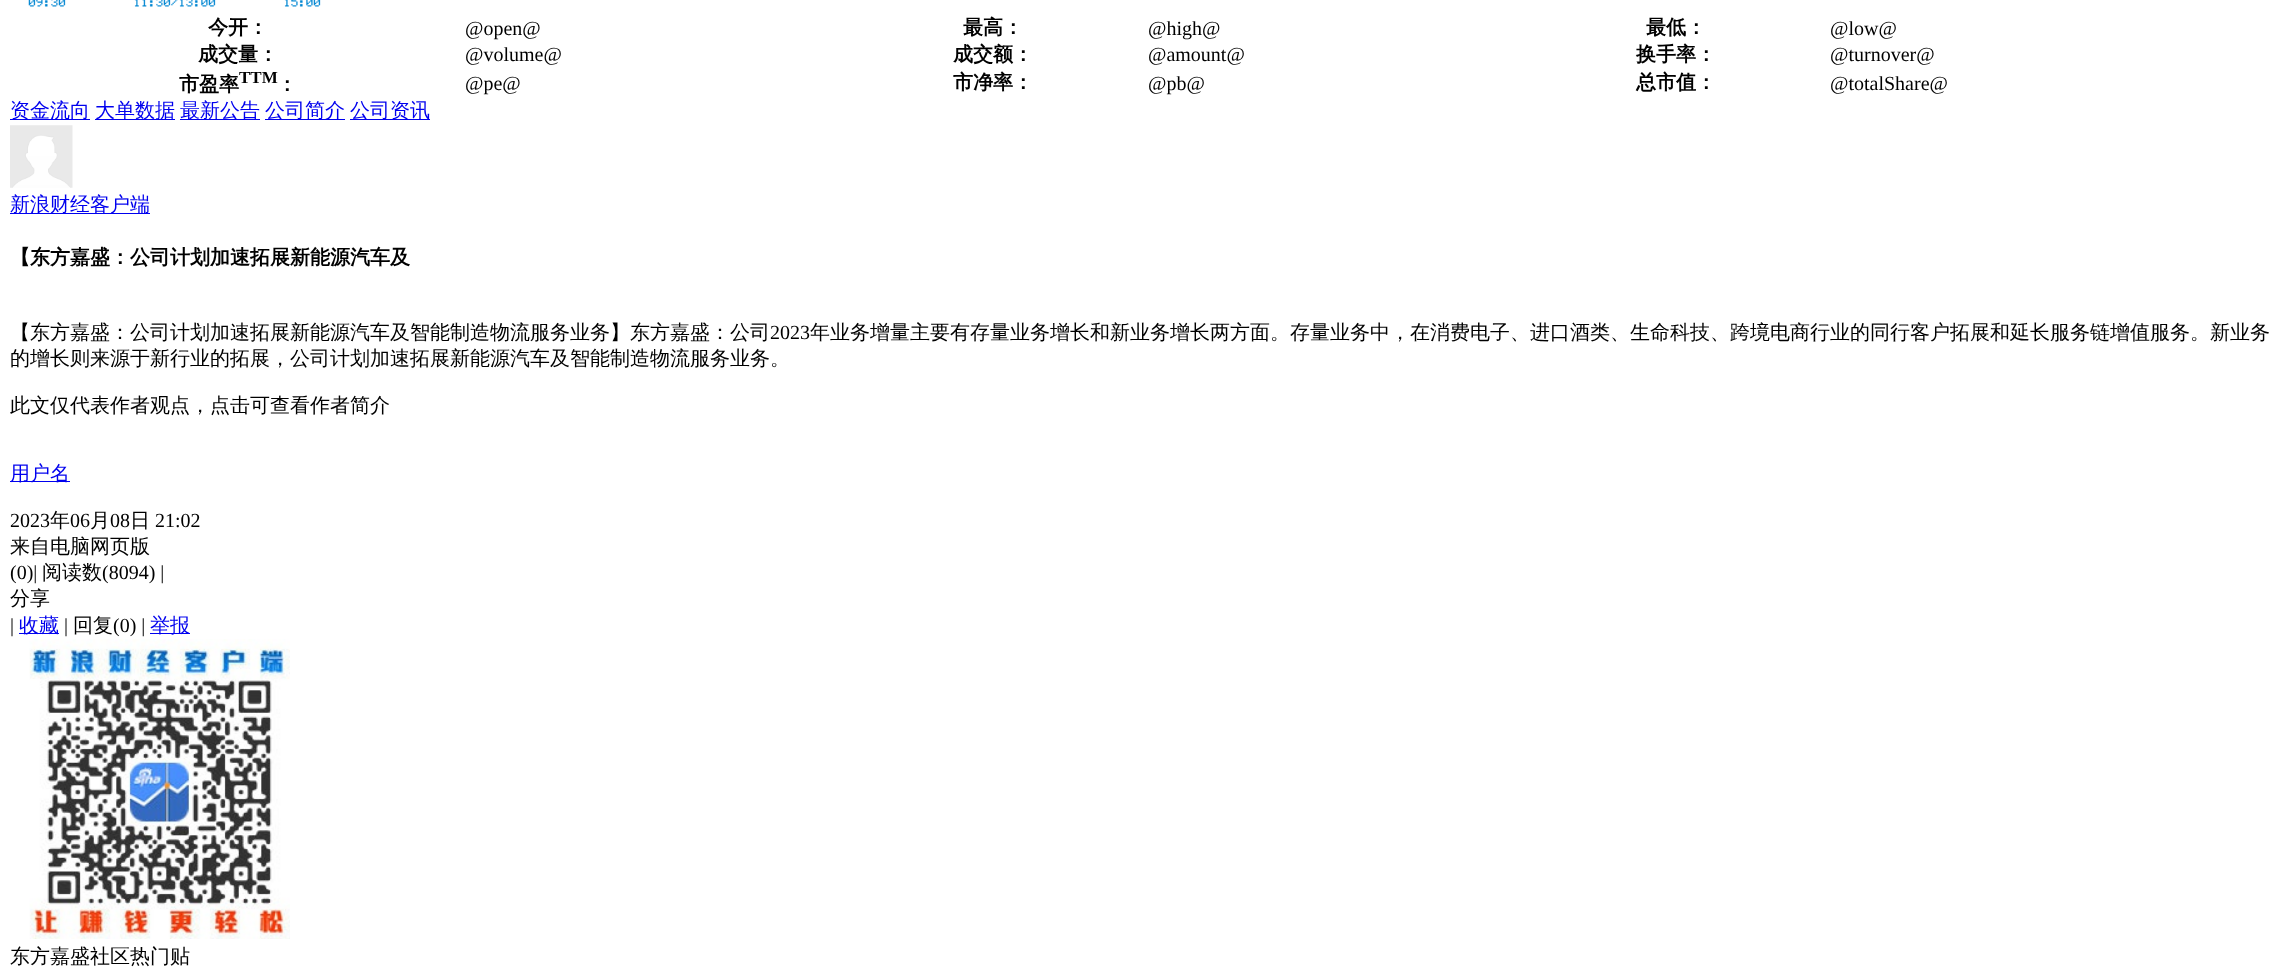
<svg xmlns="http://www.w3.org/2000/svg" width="2295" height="979">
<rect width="100%" height="100%" fill="#fff"/>
<image x="28" y="0" width="293" height="7" href="media/1.png"/>
<text x="208" y="34" style="font-family:WenQuanYi Zen Hei;font-size:20px;font-weight:bold;fill:#000">今开：</text>
<text x="465" y="35" style="font-family:Liberation Serif;font-size:20px;fill:#000">@open@</text>
<text x="963" y="34" style="font-family:WenQuanYi Zen Hei;font-size:20px;font-weight:bold;fill:#000">最高：</text>
<text x="1148" y="35" style="font-family:Liberation Serif;font-size:20px;fill:#000">@high@</text>
<text x="1646" y="34" style="font-family:WenQuanYi Zen Hei;font-size:20px;font-weight:bold;fill:#000">最低：</text>
<text x="1830" y="35" style="font-family:Liberation Serif;font-size:20px;fill:#000">@low@</text>
<text x="198" y="61" style="font-family:WenQuanYi Zen Hei;font-size:20px;font-weight:bold;fill:#000">成交量：</text>
<text x="465" y="61" style="font-family:Liberation Serif;font-size:20px;fill:#000">@volume@</text>
<text x="953" y="61" style="font-family:WenQuanYi Zen Hei;font-size:20px;font-weight:bold;fill:#000">成交额：</text>
<text x="1148" y="61" style="font-family:Liberation Serif;font-size:20px;fill:#000">@amount@</text>
<text x="1636" y="61" style="font-family:WenQuanYi Zen Hei;font-size:20px;font-weight:bold;fill:#000">换手率：</text>
<text x="1830" y="61" style="font-family:Liberation Serif;font-size:20px;fill:#000">@turnover@</text>
<text x="179" y="91" style="font-family:WenQuanYi Zen Hei;font-size:20px;font-weight:bold;fill:#000">市盈率</text>
<text x="239" y="83" style="font-family:Liberation Serif;font-size:17px;font-weight:bold;fill:#000">TTM</text>
<text x="277" y="91" style="font-family:WenQuanYi Zen Hei;font-size:20px;font-weight:bold;fill:#000">：</text>
<text x="465" y="90" style="font-family:Liberation Serif;font-size:20px;fill:#000">@pe@</text>
<text x="953" y="89" style="font-family:WenQuanYi Zen Hei;font-size:20px;font-weight:bold;fill:#000">市净率：</text>
<text x="1148" y="90" style="font-family:Liberation Serif;font-size:20px;fill:#000">@pb@</text>
<text x="1636" y="89" style="font-family:WenQuanYi Zen Hei;font-size:20px;font-weight:bold;fill:#000">总市值：</text>
<text x="1830" y="90" style="font-family:Liberation Serif;font-size:20px;fill:#000">@totalShare@</text>
<rect x="10" y="119" width="80" height="1" fill="#00e"/>
<text x="10" y="117" style="font-family:WenQuanYi Zen Hei;font-size:20px;font-weight:500;fill:#00e">资金流向</text>
<rect x="95" y="119" width="80" height="1" fill="#00e"/>
<text x="95" y="117" style="font-family:WenQuanYi Zen Hei;font-size:20px;font-weight:500;fill:#00e">大单数据</text>
<rect x="180" y="119" width="80" height="1" fill="#00e"/>
<text x="180" y="117" style="font-family:WenQuanYi Zen Hei;font-size:20px;font-weight:500;fill:#00e">最新公告</text>
<rect x="265" y="119" width="80" height="1" fill="#00e"/>
<text x="265" y="117" style="font-family:WenQuanYi Zen Hei;font-size:20px;font-weight:500;fill:#00e">公司简介</text>
<rect x="350" y="119" width="80" height="1" fill="#00e"/>
<text x="350" y="117" style="font-family:WenQuanYi Zen Hei;font-size:20px;font-weight:500;fill:#00e">公司资讯</text>
<image x="10" y="125" width="63" height="63" href="media/2.png"/>
<rect x="10" y="213" width="140" height="1" fill="#00e"/>
<text x="10" y="211" style="font-family:WenQuanYi Zen Hei;font-size:20px;font-weight:500;fill:#00e">新浪财经客户端</text>
<text x="10" y="264" style="font-family:WenQuanYi Zen Hei;font-size:20px;font-weight:bold;fill:#000">【东方嘉盛：公司计划加速拓展新能源汽车及</text>
<text x="10" y="339" style="font-family:WenQuanYi Zen Hei;font-size:20px;font-weight:500;fill:#000">【东方嘉盛：公司计划加速拓展新能源汽车及智能制造物流服务业务】东方嘉盛：公司</text>
<text x="770" y="339" style="font-family:Liberation Serif;font-size:20px;fill:#000">2023</text>
<text x="810" y="339" style="font-family:WenQuanYi Zen Hei;font-size:20px;font-weight:500;fill:#000">年业务增量主要有存量业务增长和新业务增长两方面。存量业务中，在消费电子、进口酒类、生命科技、跨境电商行业的同行客户拓展和延长服务链增值服务。新业务</text>
<text x="10" y="365" style="font-family:WenQuanYi Zen Hei;font-size:20px;font-weight:500;fill:#000">的增长则来源于新行业的拓展，公司计划加速拓展新能源汽车及智能制造物流服务业务。</text>
<text x="10" y="412" style="font-family:WenQuanYi Zen Hei;font-size:20px;font-weight:500;fill:#000">此文仅代表作者观点，点击可查看作者简介</text>
<rect x="10" y="481" width="60" height="1" fill="#00e"/>
<text x="10" y="480" style="font-family:WenQuanYi Zen Hei;font-size:20px;font-weight:500;fill:#00e">用户名</text>
<text x="10" y="527" style="font-family:Liberation Serif;font-size:20px;fill:#000">2023</text>
<text x="50" y="527" style="font-family:WenQuanYi Zen Hei;font-size:20px;font-weight:500;fill:#000">年</text>
<text x="70" y="527" style="font-family:Liberation Serif;font-size:20px;fill:#000">06</text>
<text x="90" y="527" style="font-family:WenQuanYi Zen Hei;font-size:20px;font-weight:500;fill:#000">月</text>
<text x="110" y="527" style="font-family:Liberation Serif;font-size:20px;fill:#000">08</text>
<text x="130" y="527" style="font-family:WenQuanYi Zen Hei;font-size:20px;font-weight:500;fill:#000">日</text>
<text x="155" y="527" style="font-family:Liberation Serif;font-size:20px;fill:#000">21:02</text>
<text x="10" y="553" style="font-family:WenQuanYi Zen Hei;font-size:20px;font-weight:500;fill:#000">来自电脑网页版</text>
<text x="10" y="579" style="font-family:Liberation Serif;font-size:20px;fill:#000">(0)|</text>
<text x="42" y="579" style="font-family:WenQuanYi Zen Hei;font-size:20px;font-weight:500;fill:#000">阅读数</text>
<text x="102" y="579" style="font-family:Liberation Serif;font-size:20px;fill:#000">(8094) |</text>
<text x="10" y="605" style="font-family:WenQuanYi Zen Hei;font-size:20px;font-weight:500;fill:#000">分享</text>
<text x="10" y="632" style="font-family:Liberation Serif;font-size:20px;fill:#000">|</text>
<rect x="19" y="633" width="40" height="1" fill="#00e"/>
<text x="19" y="632" style="font-family:WenQuanYi Zen Hei;font-size:20px;font-weight:500;fill:#00e">收藏</text>
<text x="64" y="632" style="font-family:Liberation Serif;font-size:20px;fill:#000">|</text>
<text x="73" y="632" style="font-family:WenQuanYi Zen Hei;font-size:20px;font-weight:500;fill:#000">回复</text>
<text x="113" y="632" style="font-family:Liberation Serif;font-size:20px;fill:#000">(0) |</text>
<rect x="150" y="633" width="40" height="1" fill="#00e"/>
<text x="150" y="632" style="font-family:WenQuanYi Zen Hei;font-size:20px;font-weight:500;fill:#00e">举报</text>
<image x="29" y="639" width="261" height="300" href="media/3.png"/>
<text x="10" y="963" style="font-family:WenQuanYi Zen Hei;font-size:20px;font-weight:500;fill:#000">东方嘉盛社区热门贴</text>
</svg>
